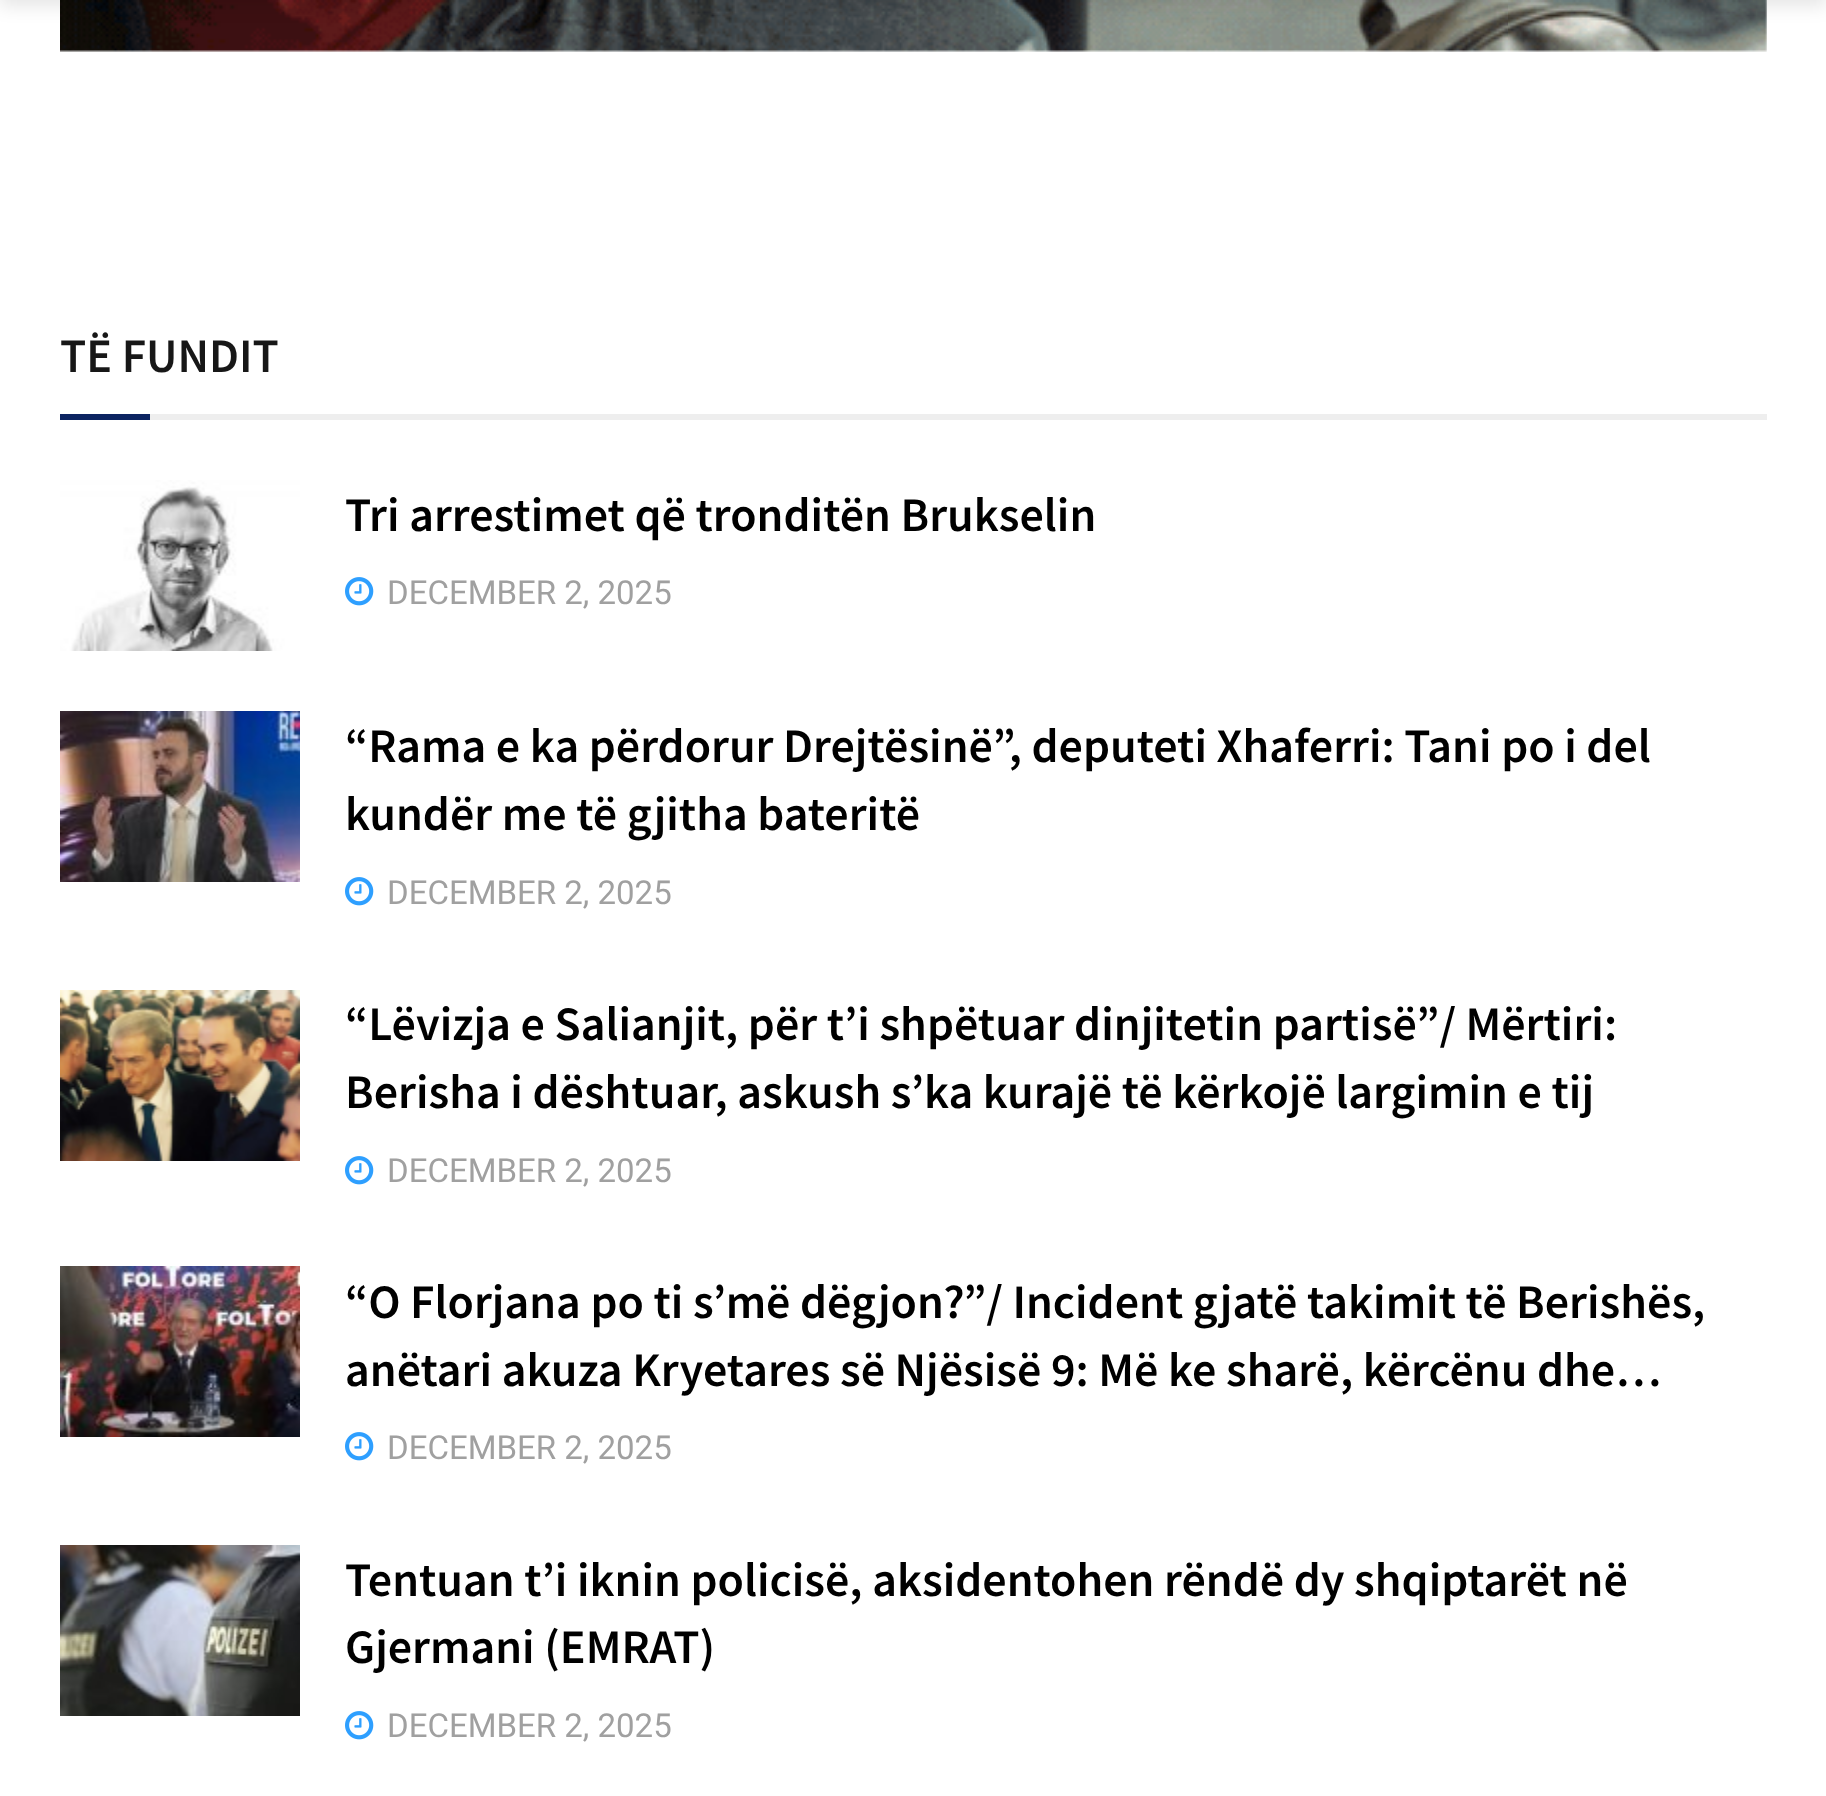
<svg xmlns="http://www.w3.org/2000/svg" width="1826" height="1796">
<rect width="100%" height="100%" fill="#fff"/>
<image x="60" y="0" width="1707" height="52" href="media/1.png"/>
<rect y="-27" width="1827" height="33" fill="#0000001a" filter="blur(9px)"/>
<rect x="150" y="414" width="1617" height="6" fill="#eee"/>
<text x="60" y="372" style="font-family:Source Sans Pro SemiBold;font-size:48px;font-weight:600;fill:#171717">TË FUNDIT</text>
<rect x="60" y="414" width="90" height="6" fill="#0c2461"/>
<image x="60" y="480" width="240" height="171" href="media/2.png"/>
<text x="345" y="531" style="font-family:Source Sans Pro SemiBold;font-size:48px;font-weight:600;fill:#000">Tri arrestimet që tronditën Brukselin</text>
<image x="345" y="577" width="29" height="29" href="media/3.png"/>
<text x="387" y="604" style="font-family:Roboto;font-size:33px;fill:#a0a0a0">DECEMBER 2, 2025</text>
<image x="60" y="711" width="240" height="171" href="media/4.png"/>
<text x="345" y="762" style="font-family:Source Sans Pro SemiBold;font-size:48px;font-weight:600;fill:#000">“Rama e ka përdorur Drejtësinë”, deputeti Xhaferri: Tani po i del</text>
<text x="345" y="830" style="font-family:Source Sans Pro SemiBold;font-size:48px;font-weight:600;fill:#000">kundër me të gjitha bateritë</text>
<image x="345" y="877" width="29" height="29" href="media/3.png"/>
<text x="387" y="904" style="font-family:Roboto;font-size:33px;fill:#a0a0a0">DECEMBER 2, 2025</text>
<image x="60" y="990" width="240" height="171" href="media/5.png"/>
<text x="345" y="1040" style="font-family:Source Sans Pro SemiBold;font-size:48px;font-weight:600;fill:#000">“Lëvizja e Salianjit, për t’i shpëtuar dinjitetin partisë”/ Mërtiri:</text>
<text x="345" y="1108" style="font-family:Source Sans Pro SemiBold;font-size:48px;font-weight:600;fill:#000">Berisha i dështuar, askush s’ka kurajë të kërkojë largimin e tij</text>
<image x="345" y="1156" width="29" height="29" href="media/3.png"/>
<text x="387" y="1182" style="font-family:Roboto;font-size:33px;fill:#a0a0a0">DECEMBER 2, 2025</text>
<image x="60" y="1266" width="240" height="171" href="media/6.png"/>
<text x="345" y="1318" style="font-family:Source Sans Pro SemiBold;font-size:48px;font-weight:600;fill:#000">“O Florjana po ti s’më dëgjon?”/ Incident gjatë takimit të Berishës,</text>
<text x="345" y="1386" style="font-family:Source Sans Pro SemiBold;font-size:48px;font-weight:600;fill:#000">anëtari akuza Kryetares së Njësisë 9: Më ke sharë, kërcënu dhe…</text>
<image x="345" y="1432" width="29" height="29" href="media/3.png"/>
<text x="387" y="1459" style="font-family:Roboto;font-size:33px;fill:#a0a0a0">DECEMBER 2, 2025</text>
<image x="60" y="1545" width="240" height="171" href="media/7.png"/>
<text x="345" y="1596" style="font-family:Source Sans Pro SemiBold;font-size:48px;font-weight:600;fill:#000">Tentuan t’i iknin policisë, aksidentohen rëndë dy shqiptarët në</text>
<text x="345" y="1663" style="font-family:Source Sans Pro SemiBold;font-size:48px;font-weight:600;fill:#000">Gjermani (EMRAT)</text>
<image x="345" y="1711" width="29" height="29" href="media/3.png"/>
<text x="387" y="1737" style="font-family:Roboto;font-size:33px;fill:#a0a0a0">DECEMBER 2, 2025</text>
</svg>
